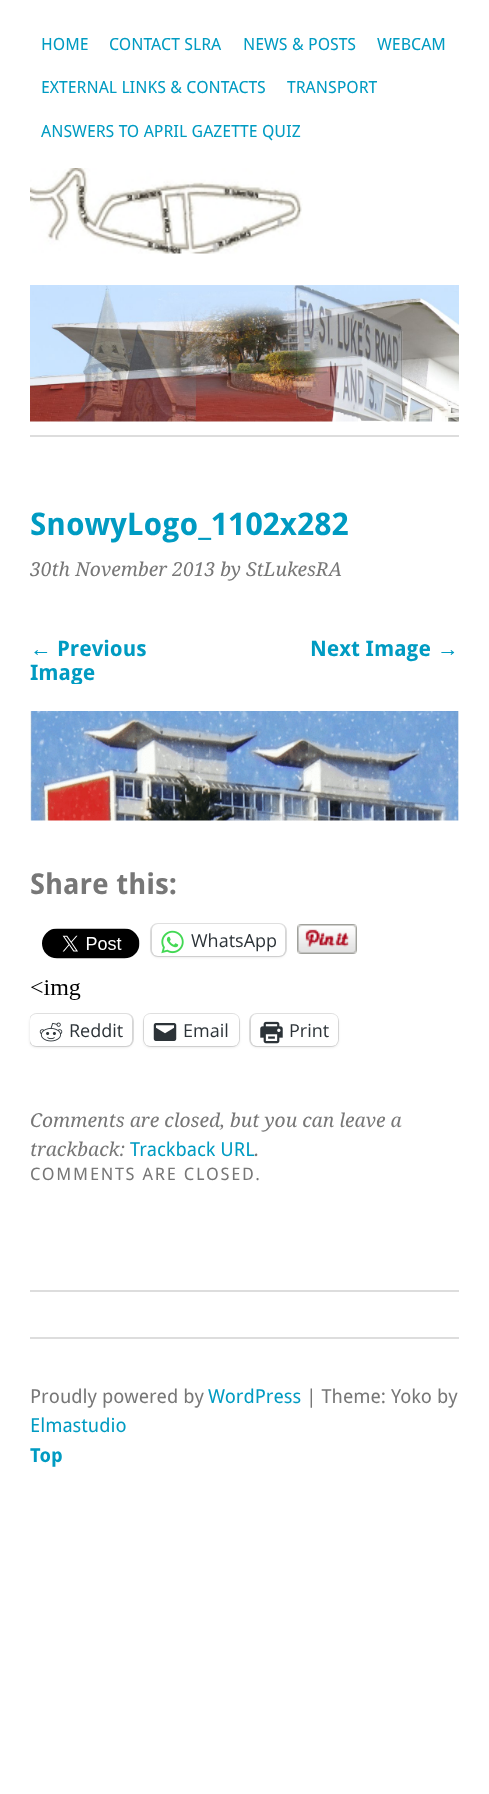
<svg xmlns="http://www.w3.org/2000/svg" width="489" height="1794">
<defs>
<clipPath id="clip1"><rect x="30" y="636" width="429" height="48"/></clipPath>
<clipPath id="clip2"><rect x="30" y="504" width="429" height="833"/></clipPath>
</defs>
<rect width="100%" height="100%" fill="#fff"/>
<image x="0" y="1497" width="489" height="297" href="media/1.png"/>
<text x="41" y="50" style="font-family:Droid Sans;font-size:16.75px;fill:#009bc2">HOME</text>
<text x="109" y="50" style="font-family:Droid Sans;font-size:16.75px;fill:#009bc2">CONTACT SLRA</text>
<text x="243" y="50" style="font-family:Droid Sans;font-size:16.75px;fill:#009bc2">NEWS &amp; POSTS</text>
<text x="377" y="50" style="font-family:Droid Sans;font-size:16.75px;fill:#009bc2">WEBCAM</text>
<text x="41" y="93" style="font-family:Droid Sans;font-size:16.75px;fill:#009bc2">EXTERNAL LINKS &amp; CONTACTS</text>
<text x="287" y="93" style="font-family:Droid Sans;font-size:16.75px;fill:#009bc2">TRANSPORT</text>
<text x="41" y="137" style="font-family:Droid Sans;font-size:16.75px;fill:#009bc2">ANSWERS TO APRIL GAZETTE QUIZ</text>
<image x="30" y="168" width="273" height="86" href="media/2.png"/>
<image x="30" y="285" width="429" height="137" href="media/3.png"/>
<rect x="30" y="435" width="429" height="2" fill="#ddd"/>
<rect x="30" y="1337" width="429" height="2" fill="#ddd"/>
<text x="30" y="535" style="font-family:Droid Sans;font-size:31.25px;font-weight:bold;fill:#009bc2">SnowyLogo_1102x282</text>
<text x="30" y="576" style="font-family:Droid Serif;font-size:19.25px;font-style:italic;fill:#777">30th November 2013 by StLukesRA</text>
<text x="30" y="656" style="font-family:Liberation Sans;font-size:21.5px;font-weight:bold;fill:#009bc2">←</text>
<text x="57" y="656" style="font-family:Droid Sans;font-size:21.5px;font-weight:bold;fill:#009bc2">Previous</text>
<g clip-path="url(#clip1)">
<text x="30" y="680" style="font-family:Droid Sans;font-size:21.5px;font-weight:bold;fill:#009bc2">Image</text>
</g>
<text x="310" y="656" style="font-family:Droid Sans;font-size:21.5px;font-weight:bold;fill:#009bc2">Next Image</text>
<text x="437" y="656" style="font-family:Liberation Sans;font-size:21.5px;font-weight:bold;fill:#009bc2">→</text>
<image x="30" y="711" width="429" height="110" href="media/4.png"/>
<text x="30" y="894" style="font-family:Droid Sans;font-size:28.75px;font-weight:bold;fill:#777">Share this:</text>
<image x="42" y="928" width="98" height="31" href="media/5.png"/>
<rect x="151" y="924" width="135" height="32" rx="7" fill="none" stroke="#e0e0e0" stroke-width="2"/>
<rect x="152" y="926" width="133" height="31" rx="6" fill="#0000001f" filter="blur(1.5px)"/>
<rect x="152" y="924" width="133" height="32" rx="6" fill="#fff"/>
<image x="161" y="930" width="23" height="24" href="media/6.png"/>
<text x="191" y="947" style="font-family:Open Sans;font-size:18px;fill:#2c3338">WhatsApp</text>
<image x="297" y="924" width="60" height="30" href="media/7.png"/>
<image x="31" y="980" width="50" height="20" href="media/8.png"/>
<g clip-path="url(#clip2)">
<rect x="30" y="1014" width="103" height="32" rx="7" fill="none" stroke="#e0e0e0" stroke-width="2"/>
</g>
<rect x="30" y="1016" width="102" height="31" rx="6" fill="#0000001f" filter="blur(1.5px)"/>
<rect x="30" y="1014" width="102" height="32" rx="6" fill="#fff"/>
<image x="39" y="1022" width="24" height="20" href="media/9.png"/>
<text x="69" y="1037" style="font-family:Open Sans;font-size:18px;fill:#2c3338">Reddit</text>
<rect x="144" y="1014" width="95" height="32" rx="7" fill="none" stroke="#e0e0e0" stroke-width="2"/>
<rect x="144" y="1016" width="95" height="31" rx="6" fill="#0000001f" filter="blur(1.5px)"/>
<rect x="144" y="1014" width="95" height="32" rx="6" fill="#fff"/>
<image x="153" y="1023" width="24" height="18" href="media/10.png"/>
<text x="183" y="1037" style="font-family:Open Sans;font-size:18px;fill:#2c3338">Email</text>
<rect x="250" y="1014" width="88" height="32" rx="7" fill="none" stroke="#e0e0e0" stroke-width="2"/>
<rect x="251" y="1016" width="87" height="31" rx="6" fill="#0000001f" filter="blur(1.5px)"/>
<rect x="251" y="1014" width="87" height="32" rx="6" fill="#fff"/>
<image x="260" y="1021" width="23" height="23" href="media/11.png"/>
<text x="289" y="1037" style="font-family:Open Sans;font-size:18px;fill:#2c3338">Print</text>
<text x="30" y="1127" style="font-family:Droid Serif;font-size:19.25px;font-style:italic;fill:#777">Comments are closed, but you can leave a</text>
<text x="30" y="1156" style="font-family:Droid Serif;font-size:19.25px;font-style:italic;fill:#777">trackback:</text>
<text x="130" y="1156" style="font-family:Droid Sans;font-size:19.25px;fill:#009bc2">Trackback URL</text>
<text x="254" y="1156" style="font-family:Droid Serif;font-size:19.25px;font-style:italic;fill:#777">.</text>
<text x="30" y="1180" style="font-family:Droid Sans;font-size:17.25px;letter-spacing:1.75px;fill:#777">COMMENTS ARE CLOSED.</text>
<rect x="30" y="1290" width="429" height="2" fill="#ddd"/>
<text x="30" y="1403" style="font-family:Droid Sans;font-size:19.25px;fill:#777">Proudly powered by</text>
<text x="208" y="1403" style="font-family:Droid Sans;font-size:19.25px;fill:#009bc2">WordPress</text>
<text x="306" y="1403" style="font-family:Droid Sans;font-size:19.25px;fill:#777">| Theme: Yoko by</text>
<text x="30" y="1432" style="font-family:Droid Sans;font-size:19.25px;fill:#009bc2">Elmastudio</text>
<text x="30" y="1462" style="font-family:Droid Sans;font-size:19.25px;font-weight:bold;fill:#009bc2">Top</text>
</svg>
